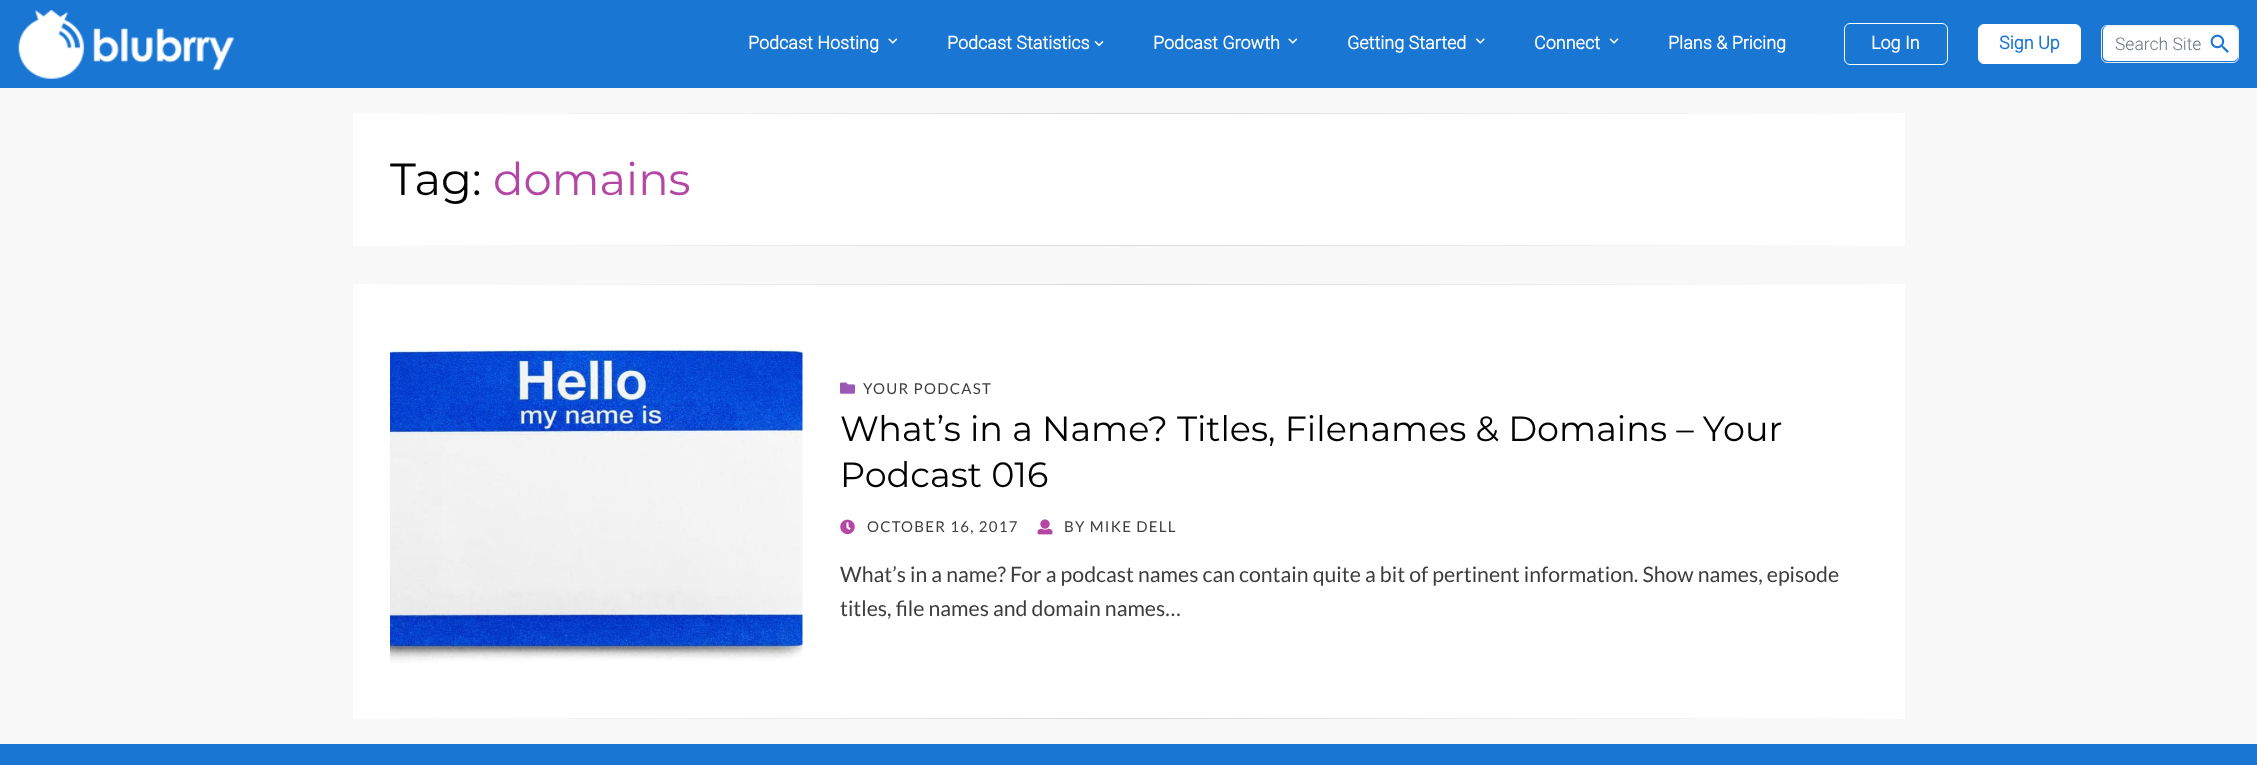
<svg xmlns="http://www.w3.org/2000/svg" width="2257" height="765">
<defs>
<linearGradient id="g1" gradientUnits="userSpaceOnUse" x1="353" y1="113" x2="1905" y2="113"><stop offset="0" stop-color="#fff"/><stop offset="0.5" stop-color="#d9d9d9"/><stop offset="1" stop-color="#fff"/></linearGradient>
<linearGradient id="g2" gradientUnits="userSpaceOnUse" x1="353" y1="246" x2="1905" y2="246"><stop offset="0" stop-color="#fff"/><stop offset="0.5" stop-color="#d9d9d9"/><stop offset="1" stop-color="#fff"/></linearGradient>
<linearGradient id="g3" gradientUnits="userSpaceOnUse" x1="353" y1="284" x2="1905" y2="284"><stop offset="0" stop-color="#fff"/><stop offset="0.5" stop-color="#d9d9d9"/><stop offset="1" stop-color="#fff"/></linearGradient>
<linearGradient id="g4" gradientUnits="userSpaceOnUse" x1="353" y1="718" x2="1905" y2="718"><stop offset="0" stop-color="#fff"/><stop offset="0.5" stop-color="#d9d9d9"/><stop offset="1" stop-color="#fff"/></linearGradient>
</defs>
<rect width="100%" height="100%" fill="#f8f8f8"/>
<rect width="2257" height="88" fill="#1976d2"/>
<image x="18" y="10" width="216" height="69" href="media/1.png"/>
<text x="748" y="49" style="font-family:Roboto;font-size:18px;font-weight:bold;fill:#fff">Podcast Hosting</text>
<image x="888" y="38" width="10" height="6" href="media/2.png"/>
<text x="947" y="49" style="font-family:Roboto;font-size:18px;font-weight:bold;fill:#fff">Podcast Statistics</text>
<image x="1094" y="40" width="10" height="7" href="media/3.png"/>
<text x="1153" y="49" style="font-family:Roboto;font-size:18px;font-weight:bold;fill:#fff">Podcast Growth</text>
<image x="1288" y="38" width="10" height="6" href="media/2.png"/>
<text x="1347" y="49" style="font-family:Roboto;font-size:18px;font-weight:bold;fill:#fff">Getting Started</text>
<image x="1475" y="38" width="10" height="6" href="media/4.png"/>
<text x="1534" y="49" style="font-family:Roboto;font-size:18px;font-weight:bold;fill:#fff">Connect</text>
<image x="1609" y="38" width="10" height="6" href="media/5.png"/>
<text x="1668" y="49" style="font-family:Roboto;font-size:18px;font-weight:bold;fill:#fff">Plans &amp; Pricing</text>
<rect x="1844.5" y="23.5" width="103" height="41" rx="5.5" fill="none" stroke="#fff"/>
<text x="1871" y="49" style="font-family:Roboto;font-size:18px;font-weight:bold;fill:#fff">Log In</text>
<rect x="1978.5" y="24.5" width="102" height="39" rx="5.5" fill="#fff" stroke="#fff"/>
<text x="1999" y="49" style="font-family:Roboto;font-size:18px;font-weight:bold;fill:#1976d2">Sign Up</text>
<rect x="2103" y="26" width="135" height="35" rx="5" fill="#fff"/>
<rect x="2101.5" y="25.5" width="137" height="37" rx="5.5" fill="none" stroke="#ebebeb"/>
<text x="2115" y="50" style="font-family:Roboto;font-size:17.5px;font-weight:300;fill:#6c757d">Search Site</text>
<image x="2210" y="34" width="19" height="19" href="media/6.png"/>
<rect x="353" y="114" width="1552" height="131" fill="#fff"/>
<rect x="353" y="113" width="1552" height="1" fill="url(#g1)"/>
<text x="390" y="195" style="font-family:Montserrat;font-size:45px;fill:#020202">Tag:</text>
<text x="493" y="195" style="font-family:Montserrat;font-size:45px;fill:#b347a3">domains</text>
<rect x="353" y="245" width="1552" height="1" fill="url(#g2)"/>
<rect x="353" y="285" width="1552" height="433" fill="#fff"/>
<rect x="353" y="284" width="1552" height="1" fill="url(#g3)"/>
<image x="390" y="346" width="413" height="317" href="media/7.png"/>
<image x="840" y="382" width="15" height="12" href="media/8.png"/>
<text x="863" y="394" style="font-family:Lato;font-size:15px;letter-spacing:1.25px;fill:#3d3d3d">YOUR PODCAST</text>
<text x="840" y="441" style="font-family:Montserrat;font-size:35px;fill:#020202">What’s in a Name? Titles, Filenames &amp; Domains – Your</text>
<text x="840" y="487" style="font-family:Montserrat;font-size:35px;fill:#020202">Podcast 016</text>
<image x="840" y="519" width="15" height="16" href="media/9.png"/>
<text x="867" y="532" style="font-family:Lato;font-size:15px;letter-spacing:1.25px;fill:#3d3d3d">OCTOBER 16, 2017</text>
<image x="1037" y="519" width="16" height="16" href="media/10.png"/>
<text x="1064" y="532" style="font-family:Lato;font-size:15px;letter-spacing:1.25px;fill:#3d3d3d">BY MIKE DELL</text>
<text x="840" y="582" style="font-family:Lato;font-size:21.25px;fill:#3d3d3d">What’s in a name? For a podcast names can contain quite a bit of pertinent information. Show names, episode</text>
<text x="840" y="616" style="font-family:Lato;font-size:21.25px;fill:#3d3d3d">titles, file names and domain names…</text>
<rect x="353" y="718" width="1552" height="1" fill="url(#g4)"/>
<rect y="744" width="2257" height="21" fill="#1976d2"/>
</svg>
